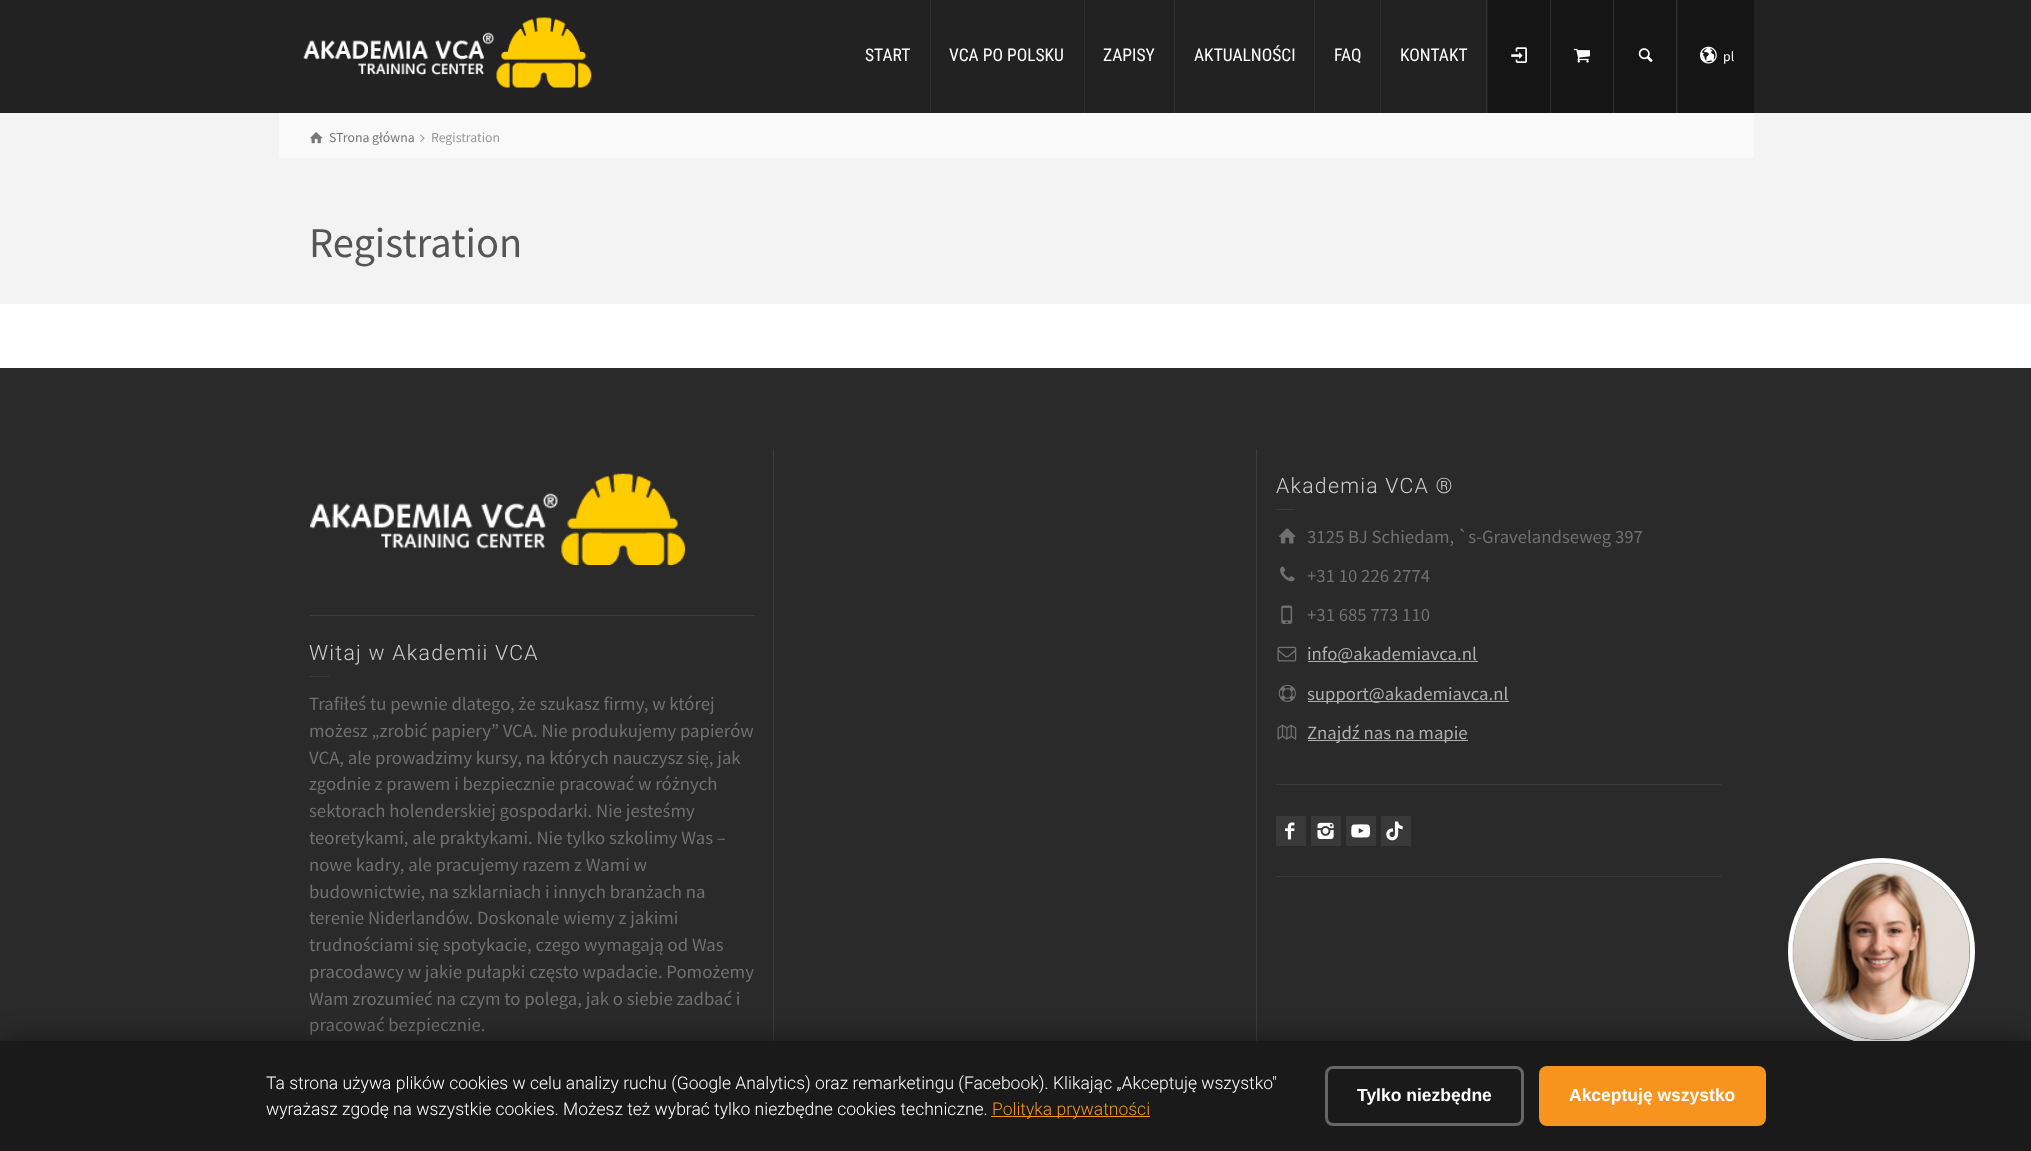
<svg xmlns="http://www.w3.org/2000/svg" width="2031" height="1151">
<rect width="100%" height="100%" fill="#222"/>
<image x="303" y="17" width="289" height="71" href="media/1.png"/>
<rect x="930" width="1" height="113" fill="#2f2f2f"/>
<text x="865" y="61" style="font-family:Roboto Condensed;font-size:17.5px;fill:#fff">START</text>
<rect x="1084" width="1" height="113" fill="#2f2f2f"/>
<text x="949" y="61" style="font-family:Roboto Condensed;font-size:17.5px;fill:#fff">VCA PO POLSKU</text>
<rect x="1174" width="1" height="113" fill="#2f2f2f"/>
<text x="1103" y="61" style="font-family:Roboto Condensed;font-size:17.5px;fill:#fff">ZAPISY</text>
<rect x="1314" width="1" height="113" fill="#2f2f2f"/>
<text x="1194" y="61" style="font-family:Roboto Condensed;font-size:17.5px;fill:#fff">AKTUALNOŚCI</text>
<rect x="1380" width="1" height="113" fill="#2f2f2f"/>
<text x="1334" y="61" style="font-family:Roboto Condensed;font-size:17.5px;fill:#fff">FAQ</text>
<rect x="1486" width="1" height="113" fill="#2f2f2f"/>
<text x="1400" y="61" style="font-family:Roboto Condensed;font-size:17.5px;fill:#fff">KONTAKT</text>
<rect x="1488" width="62" height="113" fill="#151515"/>
<rect x="1550" width="1" height="113" fill="#2f2f2f"/>
<image x="1511" y="47" width="16" height="16" href="media/2.png"/>
<rect x="1551" width="62" height="113" fill="#151515"/>
<rect x="1613" width="1" height="113" fill="#2f2f2f"/>
<image x="1573" y="48" width="17" height="15" href="media/3.png"/>
<rect x="1614" width="62" height="113" fill="#151515"/>
<rect x="1676" width="1" height="113" fill="#2f2f2f"/>
<image x="1638" y="48" width="15" height="14" href="media/4.png"/>
<rect x="1678" width="76" height="113" fill="#151515"/>
<image x="1700" y="46" width="17" height="18" href="media/5.png"/>
<text x="1723" y="61" style="font-family:Source Sans Pro;font-size:13.75px;fill:#fff">pl</text>
<rect y="113" width="2031" height="191" fill="#f3f3f3"/>
<rect x="279" y="113" width="1475" height="45" fill="#f9f9f9"/>
<image x="310" y="132" width="13" height="12" href="media/6.png"/>
<text x="329" y="142" style="font-family:Source Sans Pro;font-size:13.75px;fill:#777">STrona główna</text>
<image x="420" y="134" width="5" height="8" href="media/7.png"/>
<text x="431" y="142" style="font-family:Source Sans Pro;font-size:13.75px;fill:#999">Registration</text>
<text x="309" y="257" style="font-family:Source Sans Pro;font-size:42.5px;fill:#555">Registration</text>
<rect y="304" width="2031" height="64" fill="#fff"/>
<rect y="368" width="2031" height="673" fill="#2a2a2a"/>
<rect x="773" y="449" width="1" height="592" fill="#3c3c3c"/>
<rect x="1256" y="449" width="1" height="592" fill="#3c3c3c"/>
<text x="1276" y="493" style="font-family:Roboto;font-size:21.25px;font-weight:300;letter-spacing:1.25px;fill:#ccc">Akademia VCA ®</text>
<rect x="1276" y="509" width="19" height="1" fill="#3c3c3c"/>
<image x="1278" y="528" width="18" height="16" href="media/8.png"/>
<text x="1307" y="543" style="font-family:Source Sans Pro;font-size:18.75px;fill:#707070">3125 BJ Schiedam, `s-Gravelandseweg 397</text>
<image x="1280" y="566" width="15" height="16" href="media/9.png"/>
<text x="1307" y="582" style="font-family:Source Sans Pro;font-size:18.75px;fill:#707070">+31 10 226 2774</text>
<image x="1281" y="605" width="12" height="19" href="media/10.png"/>
<text x="1307" y="621" style="font-family:Source Sans Pro;font-size:18.75px;fill:#707070">+31 685 773 110</text>
<image x="1277" y="646" width="20" height="16" href="media/11.png"/>
<rect x="1308" y="661" width="170" height="1" fill="#aeaeae"/>
<text x="1307" y="660" style="font-family:Source Sans Pro;font-size:18.75px;fill:#aeaeae">info@akademiavca.nl</text>
<image x="1278" y="684" width="18" height="18" href="media/12.png"/>
<rect x="1308" y="701" width="201" height="1" fill="#aeaeae"/>
<text x="1307" y="700" style="font-family:Source Sans Pro;font-size:18.75px;fill:#aeaeae">support@akademiavca.nl</text>
<image x="1277" y="724" width="20" height="16" href="media/13.png"/>
<rect x="1308" y="740" width="160" height="1" fill="#aeaeae"/>
<text x="1307" y="739" style="font-family:Source Sans Pro;font-size:18.75px;fill:#aeaeae">Znajdź nas na mapie</text>
<rect x="1276" y="784" width="445" height="1" fill="#3c3c3c"/>
<rect x="1276" y="816" width="30" height="30" fill="#393939"/>
<image x="1285" y="822" width="10" height="18" href="media/14.png"/>
<rect x="1311" y="816" width="30" height="30" fill="#393939"/>
<image x="1317" y="822" width="17" height="17" href="media/15.png"/>
<rect x="1346" y="816" width="30" height="30" fill="#393939"/>
<image x="1351" y="824" width="19" height="14" href="media/16.png"/>
<rect x="1381" y="816" width="30" height="30" fill="#393939"/>
<image x="1386" y="821" width="17" height="20" href="media/17.png"/>
<rect x="1276" y="876" width="445" height="1" fill="#3c3c3c"/>
<image x="310" y="473" width="375" height="92" href="media/18.png"/>
<rect x="310" y="615" width="445" height="1" fill="#3c3c3c"/>
<text x="309" y="660" style="font-family:Roboto;font-size:21.25px;font-weight:300;letter-spacing:1.25px;fill:#ccc">Witaj w Akademii VCA</text>
<rect x="310" y="676" width="19" height="1" fill="#3c3c3c"/>
<text x="309" y="710" style="font-family:Source Sans Pro;font-size:18.75px;fill:#707070">Trafiłeś tu pewnie dlatego, że szukasz firmy, w której</text>
<text x="309" y="737" style="font-family:Source Sans Pro;font-size:18.75px;fill:#707070">możesz „zrobić papiery” VCA. Nie produkujemy papierów</text>
<text x="309" y="764" style="font-family:Source Sans Pro;font-size:18.75px;fill:#707070">VCA, ale prowadzimy kursy, na których nauczysz się, jak</text>
<text x="309" y="790" style="font-family:Source Sans Pro;font-size:18.75px;fill:#707070">zgodnie z prawem i bezpiecznie pracować w różnych</text>
<text x="309" y="817" style="font-family:Source Sans Pro;font-size:18.75px;fill:#707070">sektorach holenderskiej gospodarki. Nie jesteśmy</text>
<text x="309" y="844" style="font-family:Source Sans Pro;font-size:18.75px;fill:#707070">teoretykami, ale praktykami. Nie tylko szkolimy Was –</text>
<text x="309" y="871" style="font-family:Source Sans Pro;font-size:18.75px;fill:#707070">nowe kadry, ale pracujemy razem z Wami w</text>
<text x="309" y="898" style="font-family:Source Sans Pro;font-size:18.75px;fill:#707070">budownictwie, na szklarniach i innych branżach na</text>
<text x="309" y="924" style="font-family:Source Sans Pro;font-size:18.75px;fill:#707070">terenie Niderlandów. Doskonale wiemy z jakimi</text>
<text x="309" y="951" style="font-family:Source Sans Pro;font-size:18.75px;fill:#707070">trudnościami się spotykacie, czego wymagają od Was</text>
<text x="309" y="978" style="font-family:Source Sans Pro;font-size:18.75px;fill:#707070">pracodawcy w jakie pułapki często wpadacie. Pomożemy</text>
<text x="309" y="1005" style="font-family:Source Sans Pro;font-size:18.75px;fill:#707070">Wam zrozumieć na czym to polega, jak o siebie zadbać i</text>
<text x="309" y="1031" style="font-family:Source Sans Pro;font-size:18.75px;fill:#707070">pracować bezpiecznie.</text>
<circle cx="1881.5" cy="951.5" r="91" fill="none" stroke="#fff" stroke-width="5"/>
<image x="1792" y="862" width="179" height="178" href="media/19.png"/>
<rect y="1036" width="2031" height="110" fill="#0000004d" filter="blur(12.5px)"/>
<rect y="1041" width="2031" height="110" fill="#1a1a1a"/>
<text x="266" y="1089" style="font-family:Roboto;font-size:17.5px;font-weight:300;fill:#fff">Ta strona używa plików cookies w celu analizy ruchu (Google Analytics) oraz remarketingu (Facebook). Klikając „Akceptuję wszystko"</text>
<text x="266" y="1115" style="font-family:Roboto;font-size:17.5px;font-weight:300;fill:#fff">wyrażasz zgodę na wszystkie cookies. Możesz też wybrać tylko niezbędne cookies techniczne.</text>
<rect x="991" y="1116" width="159" height="1" fill="#f7941d"/>
<text x="992" y="1115" style="font-family:Roboto;font-size:17.5px;font-weight:300;fill:#f7941d">Polityka prywatności</text>
<rect x="1326.5" y="1067.5" width="196" height="57" rx="6.5" fill="none" stroke="#666" stroke-width="3"/>
<text x="1357" y="1101" style="font-family:Liberation Sans;font-size:17.5px;font-weight:bold;fill:#fff">Tylko niezbędne</text>
<rect x="1539" y="1066" width="227" height="60" rx="8" fill="#f7941d"/>
<text x="1569" y="1101" style="font-family:Liberation Sans;font-size:17.5px;font-weight:bold;fill:#fff">Akceptuję wszystko</text>
</svg>
